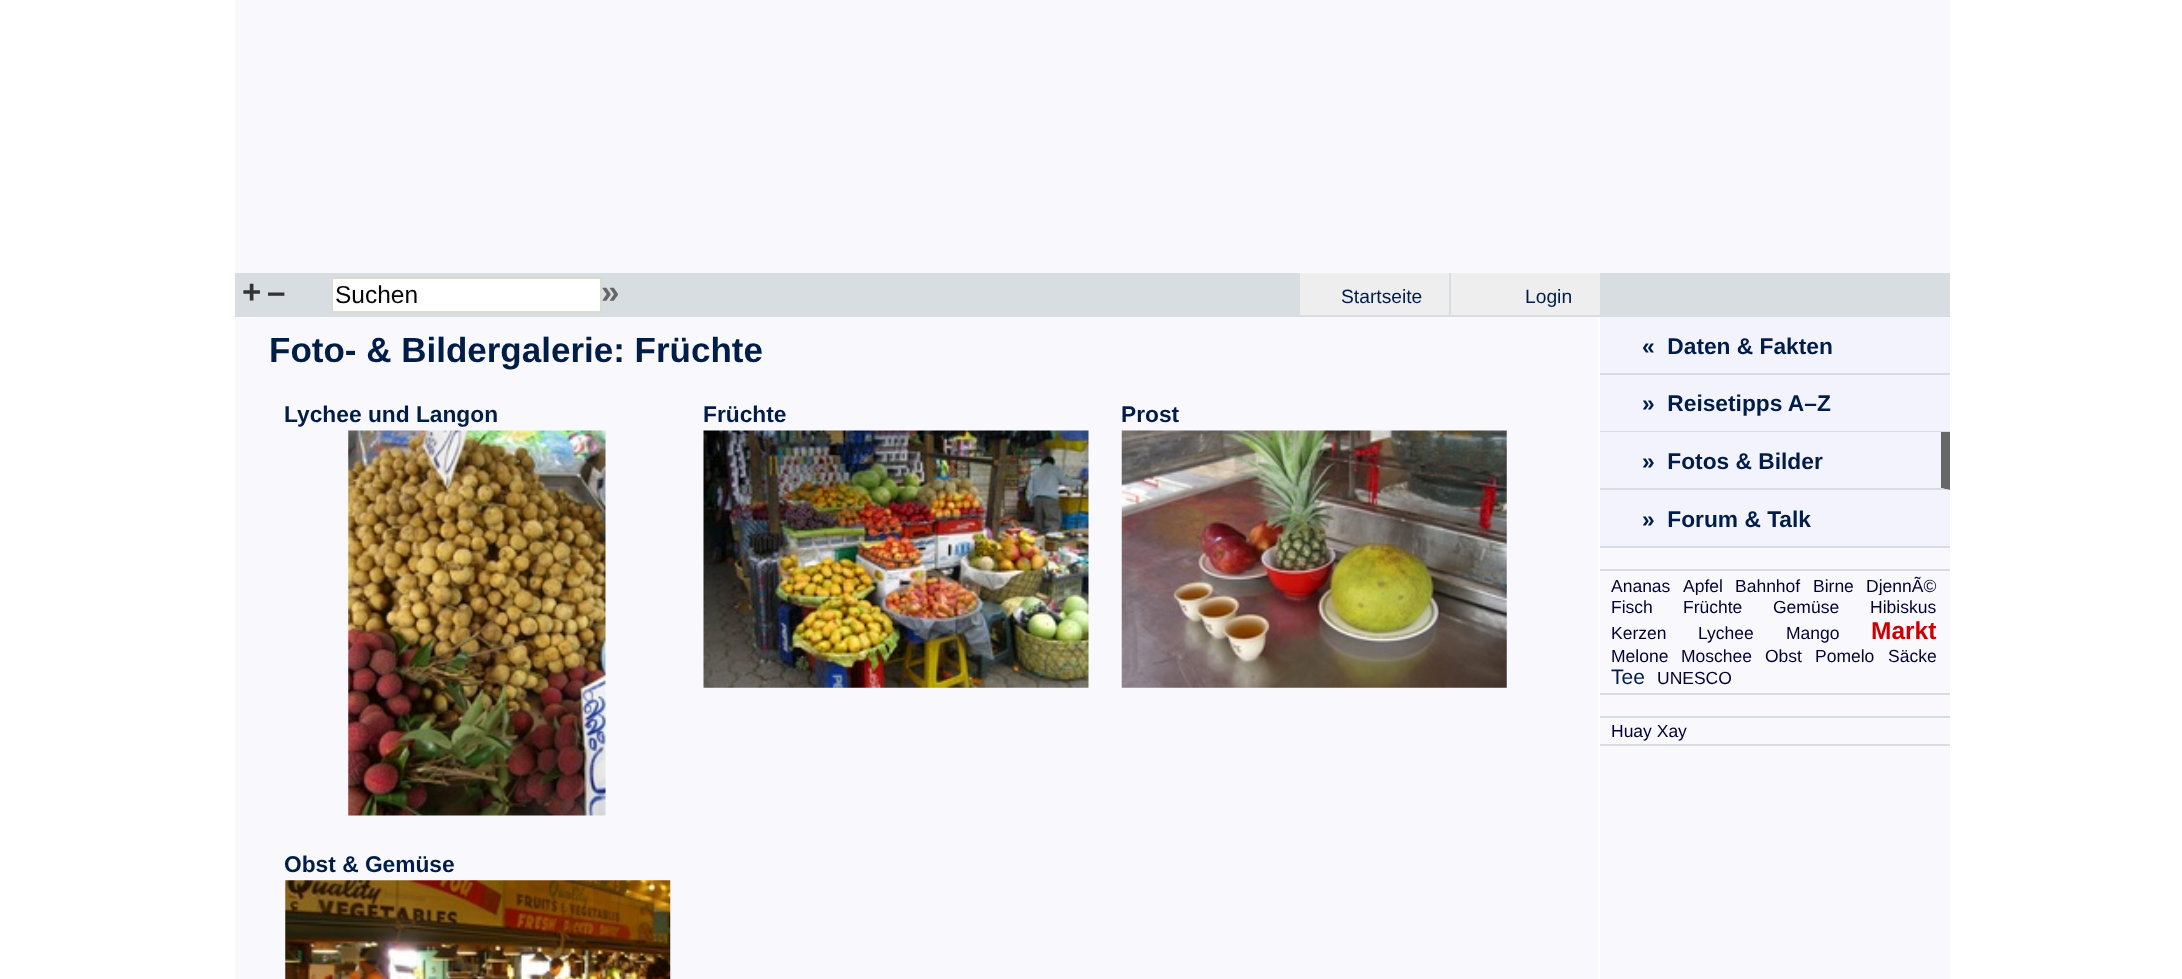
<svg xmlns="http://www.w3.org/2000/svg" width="2182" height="979">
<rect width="100%" height="100%" fill="#fff"/>
<rect x="235" width="1715" height="979" fill="#f9f9fd"/>
<rect x="235" y="273" width="1715" height="44" fill="#d8dde2"/>
<text x="242" y="303" style="font-family:Liberation Sans;font-size:33px;font-weight:bold;fill:#333">+</text>
<text x="267" y="303" style="font-family:Liberation Sans;font-size:33px;font-weight:bold;fill:#333">–</text>
<rect x="332" y="278" width="269" height="34" fill="#fff" stroke="#dcdcce" stroke-width="2"/>
<text x="335" y="303" style="font-family:Liberation Sans;font-size:24.5px;fill:#050505">Suchen</text>
<text x="601" y="303" style="font-family:Liberation Sans;font-size:33px;font-weight:bold;fill:#666">»</text>
<rect x="1300" y="273" width="149" height="42" fill="#eee"/>
<text x="1341" y="303" style="font-family:Liberation Sans;font-size:19.25px;fill:#001d48">Startseite</text>
<rect x="1451" y="273" width="149" height="42" fill="#eee"/>
<text x="1525" y="303" style="font-family:Liberation Sans;font-size:19.25px;fill:#001d48">Login</text>
<rect x="1598" y="317" width="2" height="662" fill="#fff"/>
<text x="269" y="362" style="font-family:Liberation Sans;font-size:35px;font-weight:bold;fill:#001d48">Foto- &amp; Bildergalerie: Früchte</text>
<text x="284" y="422" style="font-family:Liberation Sans;font-size:22.75px;font-weight:bold;fill:#001d48">Lychee und Langon</text>
<image x="348" y="430" width="258" height="386" href="media/1.png"/>
<text x="703" y="422" style="font-family:Liberation Sans;font-size:22.75px;font-weight:bold;fill:#001d48">Früchte</text>
<image x="703" y="430" width="386" height="258" href="media/2.png"/>
<text x="1121" y="422" style="font-family:Liberation Sans;font-size:22.75px;font-weight:bold;fill:#001d48">Prost</text>
<image x="1121" y="430" width="386" height="258" href="media/3.png"/>
<text x="284" y="872" style="font-family:Liberation Sans;font-size:22.75px;font-weight:bold;fill:#001d48">Obst &amp; Gemüse</text>
<image x="285" y="880" width="386" height="99" href="media/4.png"/>
<rect x="1600" y="317" width="350" height="56" fill="#f3f3fd"/>
<rect x="1600" y="373" width="350" height="2" fill="#d8dde2"/>
<text x="1642" y="354" style="font-family:Liberation Sans;font-size:22.75px;font-weight:bold;fill:#001d48" xml:space="preserve">«  Daten &amp; Fakten</text>
<rect x="1600" y="375" width="350" height="56" fill="#f3f3fd"/>
<rect x="1600" y="431" width="350" height="1" fill="#d8dde2"/>
<text x="1642" y="411" style="font-family:Liberation Sans;font-size:22.75px;font-weight:bold;fill:#001d48" xml:space="preserve">»  Reisetipps A–Z</text>
<rect x="1600" y="432" width="350" height="114" fill="#f3f3fd"/>
<path d="M1950 432v58l-9-2v-56z" fill="#666"/>
<path d="M1950 490h-350v-2h341z" fill="#d8dde2"/>
<text x="1642" y="469" style="font-family:Liberation Sans;font-size:22.75px;font-weight:bold;fill:#001d48" xml:space="preserve">»  Fotos &amp; Bilder</text>
<rect x="1600" y="546" width="350" height="2" fill="#d8dde2"/>
<text x="1642" y="527" style="font-family:Liberation Sans;font-size:22.75px;font-weight:bold;fill:#001d48" xml:space="preserve">»  Forum &amp; Talk</text>
<rect x="1600" y="569" width="350" height="2" fill="#d8dde2"/>
<rect x="1600" y="693" width="350" height="2" fill="#d8dde2"/>
<text x="1611" y="592" style="font-family:Liberation Sans;font-size:17.5px;fill:#003">Ananas</text>
<text x="1683" y="592" style="font-family:Liberation Sans;font-size:17.5px;fill:#003">Apfel</text>
<text x="1735" y="592" style="font-family:Liberation Sans;font-size:17.5px;fill:#003">Bahnhof</text>
<text x="1813" y="592" style="font-family:Liberation Sans;font-size:17.5px;fill:#003">Birne</text>
<text x="1866" y="592" style="font-family:Liberation Sans;font-size:17.5px;fill:#003">DjennÃ©</text>
<text x="1611" y="613" style="font-family:Liberation Sans;font-size:17.5px;fill:#003">Fisch</text>
<text x="1683" y="613" style="font-family:Liberation Sans;font-size:17.5px;fill:#003">Früchte</text>
<rect x="1695" y="595" width="3" height="1" fill="#f9f9fd"/>
<text x="1773" y="613" style="font-family:Liberation Sans;font-size:17.5px;fill:#003">Gemüse</text>
<text x="1870" y="613" style="font-family:Liberation Sans;font-size:17.5px;fill:#003">Hibiskus</text>
<rect x="1878" y="595" width="3" height="1" fill="#f9f9fd"/>
<text x="1611" y="639" style="font-family:Liberation Sans;font-size:17.5px;fill:#003">Kerzen</text>
<text x="1698" y="639" style="font-family:Liberation Sans;font-size:17.5px;fill:#003">Lychee</text>
<text x="1786" y="639" style="font-family:Liberation Sans;font-size:17.5px;fill:#003">Mango</text>
<text x="1871" y="639" style="font-family:Liberation Sans;font-size:24.5px;font-weight:bold;fill:#c00">Markt</text>
<text x="1611" y="662" style="font-family:Liberation Sans;font-size:17.5px;fill:#003">Melone</text>
<text x="1681" y="662" style="font-family:Liberation Sans;font-size:17.5px;fill:#003">Moschee</text>
<text x="1765" y="662" style="font-family:Liberation Sans;font-size:17.5px;fill:#003">Obst</text>
<text x="1815" y="662" style="font-family:Liberation Sans;font-size:17.5px;fill:#003">Pomelo</text>
<text x="1888" y="662" style="font-family:Liberation Sans;font-size:17.5px;fill:#003">Säcke</text>
<text x="1611" y="684" style="font-family:Liberation Sans;font-size:21px;fill:#001d48">Tee</text>
<text x="1657" y="684" style="font-family:Liberation Sans;font-size:17.5px;fill:#003">UNESCO</text>
<rect x="1600" y="716" width="350" height="2" fill="#d8dde2"/>
<rect x="1600" y="744" width="350" height="2" fill="#d8dde2"/>
<text x="1611" y="737" style="font-family:Liberation Sans;font-size:17.5px;fill:#003">Huay Xay</text>
</svg>
